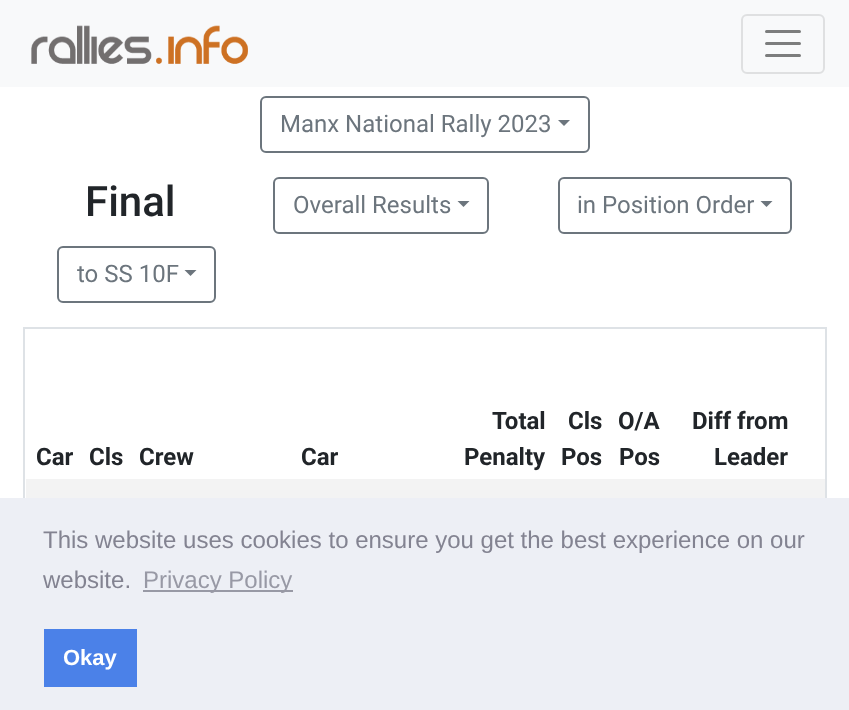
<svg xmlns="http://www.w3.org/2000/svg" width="849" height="710">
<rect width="100%" height="100%" fill="#fff"/>
<rect width="849" height="87" fill="#f8f9fa"/>
<image x="31" y="25" width="217" height="39" href="media/1.png"/>
<rect x="742" y="15" width="82" height="58" rx="5" fill="none" stroke="#dfe0e1" stroke-width="2"/>
<path d="M766.5 31.5h33m-33 12h33m-33 12h33" fill="none" stroke="#7c7d7d" stroke-width="3" stroke-linecap="round"/>
<rect x="261" y="97" width="328" height="55" rx="5" fill="none" stroke="#6c757d" stroke-width="2"/>
<text x="280" y="132" style="font-family:Roboto;font-size:24px;fill:#6c757d">Manx National Rally 2023</text>
<path d="M558 120h12l-6 6z" fill="#6c757d"/>
<text x="85" y="216" style="font-family:Roboto;font-size:42px;font-weight:500;fill:#212529">Final</text>
<rect x="274" y="178" width="214" height="55" rx="5" fill="none" stroke="#6c757d" stroke-width="2"/>
<text x="293" y="213" style="font-family:Roboto;font-size:24px;fill:#6c757d">Overall Results</text>
<path d="M457.5 201h12l-6 6z" fill="#6c757d"/>
<rect x="559" y="178" width="232" height="55" rx="5" fill="none" stroke="#6c757d" stroke-width="2"/>
<text x="577" y="213" style="font-family:Roboto;font-size:24px;fill:#6c757d">in Position Order</text>
<path d="M760.5 201h12l-6 6z" fill="#6c757d"/>
<rect x="58" y="247" width="157" height="55" rx="5" fill="none" stroke="#6c757d" stroke-width="2"/>
<text x="77" y="282" style="font-family:Roboto;font-size:24px;fill:#6c757d">to SS 10F</text>
<path d="M184.5 270h12l-6 6z" fill="#6c757d"/>
<rect x="24" y="328" width="802" height="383" fill="none" stroke="#dee2e6" stroke-width="2"/>
<text x="36" y="465" style="font-family:Roboto;font-size:24px;font-weight:bold;fill:#212529">Car</text>
<text x="89" y="465" style="font-family:Roboto;font-size:24px;font-weight:bold;fill:#212529">Cls</text>
<text x="139" y="465" style="font-family:Roboto;font-size:24px;font-weight:bold;fill:#212529">Crew</text>
<text x="301" y="465" style="font-family:Roboto;font-size:24px;font-weight:bold;fill:#212529">Car</text>
<text x="492" y="429" style="font-family:Roboto;font-size:24px;font-weight:bold;fill:#212529">Total</text>
<text x="464" y="465" style="font-family:Roboto;font-size:24px;font-weight:bold;fill:#212529">Penalty</text>
<text x="568" y="429" style="font-family:Roboto;font-size:24px;font-weight:bold;fill:#212529">Cls</text>
<text x="561" y="465" style="font-family:Roboto;font-size:24px;font-weight:bold;fill:#212529">Pos</text>
<text x="618" y="429" style="font-family:Roboto;font-size:24px;font-weight:bold;fill:#212529">O/A</text>
<text x="619" y="465" style="font-family:Roboto;font-size:24px;font-weight:bold;fill:#212529">Pos</text>
<text x="692" y="429" style="font-family:Roboto;font-size:24px;font-weight:bold;fill:#212529">Diff from</text>
<text x="714" y="465" style="font-family:Roboto;font-size:24px;font-weight:bold;fill:#212529">Leader</text>
<rect x="26" y="479" width="799" height="19" fill="#f3f3f3"/>
<rect y="498" width="849" height="212" fill="#edeff5"/>
<text x="43" y="548" style="font-family:Liberation Sans;font-size:24px;fill:#838391">This website uses cookies to ensure you get the best experience on our</text>
<text x="43" y="588" style="font-family:Liberation Sans;font-size:24px;fill:#838391">website.</text>
<rect x="143" y="590" width="150" height="2" fill="#9899a5"/>
<text x="143" y="588" style="font-family:Liberation Sans;font-size:24px;fill:#9899a5">Privacy Policy</text>
<rect x="44" y="629" width="93" height="58" fill="#4b81e8"/>
<text x="63" y="665" style="font-family:Liberation Sans;font-size:22px;font-weight:bold;fill:#fff">Okay</text>
</svg>
